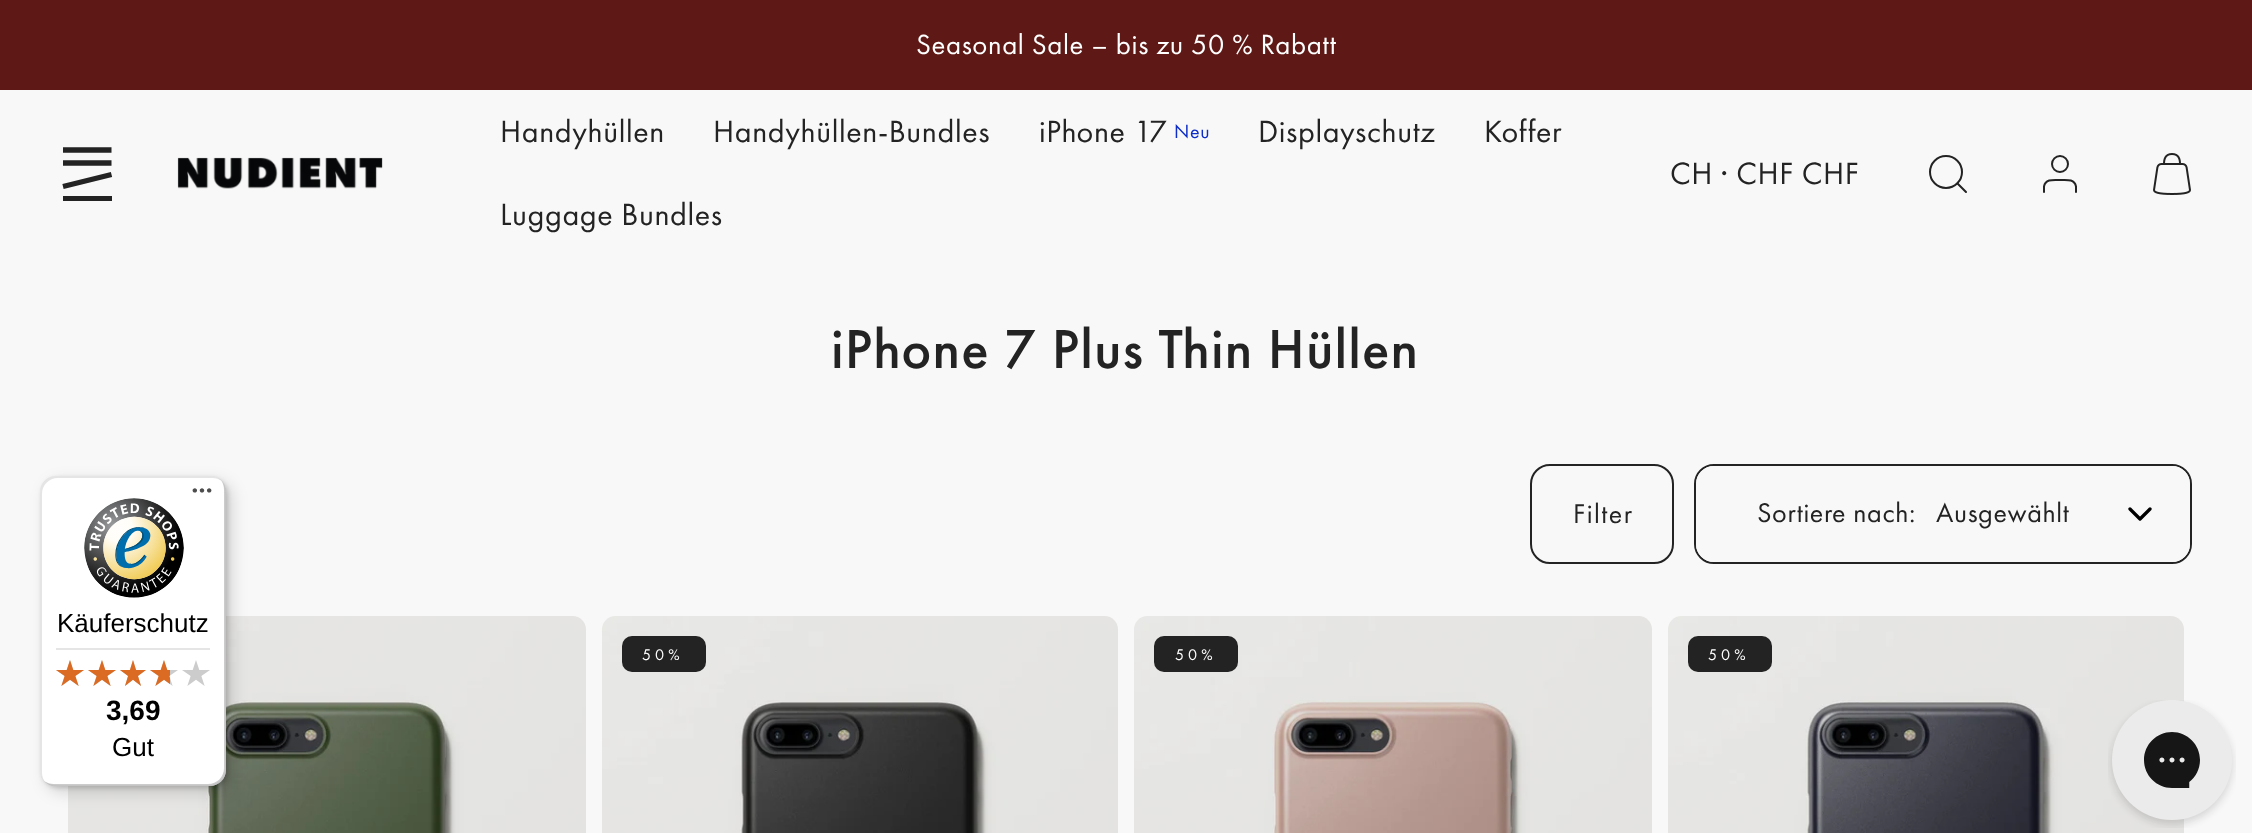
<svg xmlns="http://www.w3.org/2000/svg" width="2252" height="833">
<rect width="100%" height="100%" fill="#f8f8f8"/>
<rect width="2252" height="90" fill="#5e1916"/>
<text x="916" y="54" style="font-family:Futura PT;font-size:28.75px;letter-spacing:0.6px;fill:#fff">Seasonal Sale – bis zu 50 % Rabatt</text>
<path d="M63 150h48.5" fill="none" stroke="#232323" stroke-width="5.3"/>
<rect x="63" y="196" width="49" height="5" fill="#232323"/>
<path d="M63 163h48.5m-48.5 23.5l48.5-12" fill="none" stroke="#232323" stroke-width="5.3"/>
<image x="177" y="157" width="206" height="32" href="media/1.png"/>
<text x="500" y="142" style="font-family:Futura PT;font-size:32px;letter-spacing:0.6px;fill:#232323">Handyhüllen</text>
<text x="713" y="142" style="font-family:Futura PT;font-size:32px;letter-spacing:0.6px;fill:#232323">Handyhüllen-Bundles</text>
<text x="1039" y="142" style="font-family:Futura PT;font-size:32px;letter-spacing:0.6px;fill:#232323">iPhone 17</text>
<text x="1174" y="138" style="font-family:Futura PT;font-size:20px;letter-spacing:0.6px;fill:#0e2cc7">Neu</text>
<text x="1258" y="142" style="font-family:Futura PT;font-size:32px;letter-spacing:0.6px;fill:#232323">Displayschutz</text>
<text x="1484" y="142" style="font-family:Futura PT;font-size:32px;letter-spacing:0.6px;fill:#232323">Koffer</text>
<text x="500" y="225" style="font-family:Futura PT;font-size:32px;letter-spacing:0.6px;fill:#232323">Luggage Bundles</text>
<text x="1670" y="184" style="font-family:Futura PT;font-size:32px;letter-spacing:0.6px;fill:#232323">CH · CHF CHF</text>
<circle cx="1946" cy="172" r="16" fill="none" stroke="#232323" stroke-width="2"/>
<path d="M1966 192l-8.5-8.5" fill="none" stroke="#232323" stroke-width="2" stroke-linecap="round" stroke-linejoin="round"/>
<path d="M2076 192v-5.5c-1.5-8-10-6.5-16-6.5c-6 0-14.5-1.5-16 6.5v5.5" fill="none" stroke="#232323" stroke-width="2" stroke-linecap="round" stroke-linejoin="round"/>
<circle cx="2060" cy="164" r="8" fill="none" stroke="#232323" stroke-width="2"/>
<image x="2153" y="153" width="38" height="42" href="media/2.png"/>
<text x="831" y="368" style="font-family:Futura PT;font-size:56.9px;font-weight:500;letter-spacing:1.1px;fill:#232323">iPhone 7 Plus Thin Hüllen</text>
<rect x="1531" y="465" width="142" height="98" rx="19" fill="none" stroke="#232323" stroke-width="2"/>
<text x="1573" y="523" style="font-family:Futura PT;font-size:28px;letter-spacing:1.5px;fill:#232323">Filter</text>
<rect x="1695" y="465" width="496" height="98" rx="19" fill="none" stroke="#232323" stroke-width="2"/>
<rect x="1696" y="466" width="494" height="96" rx="18" fill="#f8f8f8"/>
<text x="1757" y="522" style="font-family:Futura PT;font-size:28px;letter-spacing:0.6px;fill:#232323">Sortiere nach:</text>
<text x="1936" y="522" style="font-family:Futura PT;font-size:28px;letter-spacing:0.6px;fill:#232323">Ausgewählt</text>
<path d="M2130 509l10 10l10-10" fill="none" stroke="#000" stroke-width="3.3" stroke-linecap="round" stroke-linejoin="round"/>
<image x="68" y="616" width="518" height="217" href="media/3.png"/>
<image x="602" y="616" width="516" height="217" href="media/4.png"/>
<rect x="622" y="636" width="84" height="36" rx="10" fill="#232323"/>
<text x="642" y="660" style="font-family:Futura PT;font-size:16px;letter-spacing:4px;fill:#fff">50%</text>
<image x="1134" y="616" width="518" height="217" href="media/5.png"/>
<rect x="1154" y="636" width="84" height="36" rx="10" fill="#232323"/>
<text x="1175" y="660" style="font-family:Futura PT;font-size:16px;letter-spacing:4px;fill:#fff">50%</text>
<image x="1668" y="616" width="516" height="217" href="media/6.png"/>
<rect x="1688" y="636" width="84" height="36" rx="10" fill="#232323"/>
<text x="1708" y="660" style="font-family:Futura PT;font-size:16px;letter-spacing:4px;fill:#fff">50%</text>
<rect x="46" y="482" width="186" height="310" rx="16" fill="#00000026" filter="blur(8px)"/>
<rect x="42" y="478" width="186" height="310" rx="16" fill="#00000026" filter="blur(2px)"/>
<rect x="40" y="476" width="186" height="310" rx="16" fill="#fff"/>
<path d="M58 478h154c4 0 7 1 10 3c-3-3-7-5-12-5h-154c-9 0-16 7-16 16v278c0 5 2 9 5 12c-2-3-3-6-3-10v-278c0-9 7-16 16-16z" fill="#0000001a"/>
<path d="M44 781c3 3 7 5 12 5h154c9 0 16-7 16-16v-278c0-5-2-9-5-12c2 3 3 6 3 10v278c0 9-7 16-16 16h-154c-4 0-7-1-10-3z" fill="#00000033"/>
<path d="M45 781c3 3 7 5 11 5h154c9 0 16-7 16-16v-278c0-4-2-8-5-11c3 3 4 6 4 10v278c0 9-7 16-16 16h-154c-4 0-7-1-10-4z" fill="#32323233"/>
<path d="M45 781c3 3 7 5 11 5h154c9 0 16-7 16-16v-278c0-4-2-8-5-11c3 3 4 6 4 10v278c0 9-7 16-16 16h-154c-4 0-7-1-10-4z" fill="#ffffff4d"/>
<image x="192" y="488" width="20" height="5" href="media/7.png"/>
<image x="84" y="498" width="100" height="100" href="media/8.png"/>
<text x="57" y="632" style="font-family:Liberation Sans;font-size:26px;fill:#000">Käuferschutz</text>
<rect x="56" y="648" width="154" height="2" fill="#e5e5e5"/>
<image x="56" y="660" width="28" height="26" href="media/9.png"/>
<image x="88" y="660" width="28" height="26" href="media/9.png"/>
<image x="120" y="660" width="26" height="26" href="media/10.png"/>
<image x="150" y="660" width="28" height="26" href="media/9.png"/>
<image x="182" y="660" width="28" height="26" href="media/9.png"/>
<image x="56" y="660" width="28" height="26" href="media/11.png"/>
<image x="88" y="660" width="28" height="26" href="media/11.png"/>
<image x="120" y="660" width="26" height="26" href="media/12.png"/>
<image x="150" y="660" width="20" height="26" href="media/13.png"/>
<text x="106" y="720" style="font-family:Liberation Sans;font-size:28px;font-weight:bold;fill:#000">3,69</text>
<text x="112" y="756" style="font-family:Liberation Sans;font-size:26px;fill:#000">Gut</text>
<image x="2108" y="700" width="128" height="128" href="media/14.png"/>
</svg>
